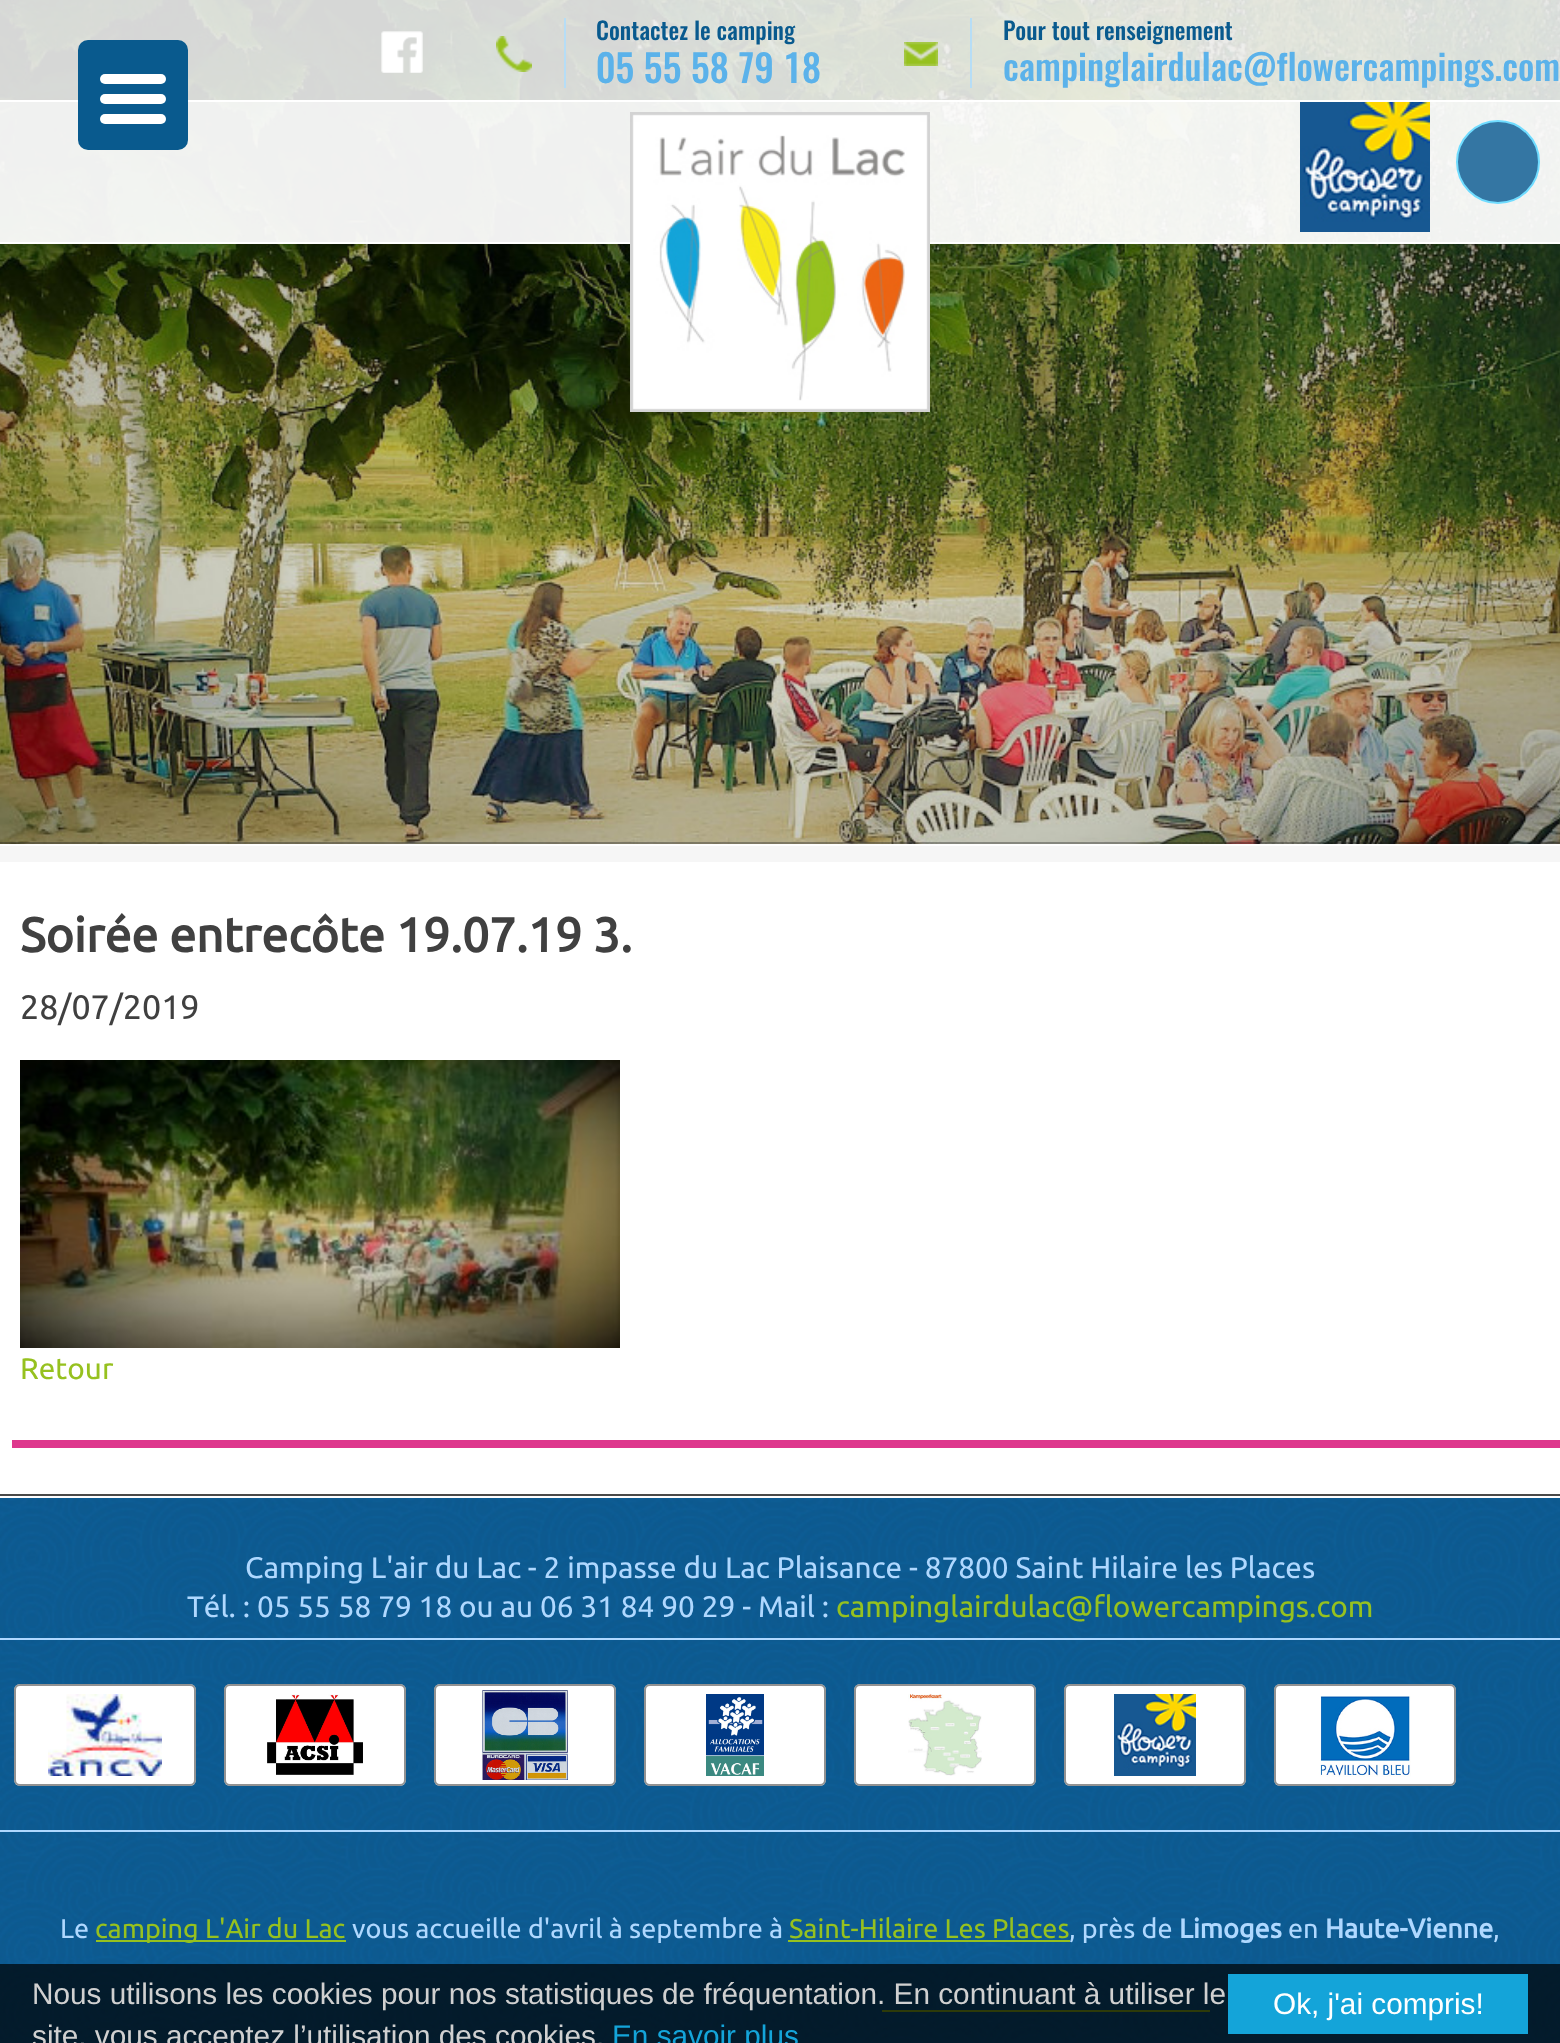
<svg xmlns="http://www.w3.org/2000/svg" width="1560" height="2043">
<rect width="100%" height="100%" fill="#fff"/>
<image x="0" y="0" width="1560" height="844" href="media/1.png"/>
<rect width="1560" height="242" fill="#ffffffcc"/>
<rect y="242" width="1560" height="2" fill="#fff"/>
<rect width="1560" height="100" fill="#ffffff33"/>
<rect y="100" width="1560" height="2" fill="#fff"/>
<image x="381" y="31" width="42" height="42" href="media/2.png"/>
<image x="496" y="36" width="36" height="36" href="media/3.png"/>
<rect x="564" y="18" width="2" height="70" fill="#b6ddf6"/>
<text x="596" y="40" style="font-family:Oswald;font-size:24px;font-weight:500;fill:#095a8e">Contactez le camping</text>
<text x="596" y="83" style="font-family:Oswald;font-size:38px;font-weight:500;fill:#5bb2ea">05 55 58 79 18</text>
<image x="904" y="42" width="34" height="24" href="media/4.png"/>
<rect x="970" y="18" width="2" height="70" fill="#b6ddf6"/>
<text x="1003" y="40" style="font-family:Oswald;font-size:24px;font-weight:500;fill:#095a8e">Pour tout renseignement</text>
<text x="1003" y="81" style="font-family:Oswald;font-size:36px;font-weight:500;fill:#5bb2ea">campinglairdulac@flowercampings.com</text>
<rect y="102" width="1560" height="140" fill="#ffffffb3"/>
<image x="630" y="112" width="300" height="300" href="media/5.png"/>
<image x="1300" y="102" width="130" height="130" href="media/6.png"/>
<circle cx="1498" cy="162" r="41" fill="#3476a3" stroke="#70dcff" stroke-width="2"/>
<rect x="78" y="40" width="110" height="110" rx="10" fill="#095a8e"/>
<rect x="100" y="94" width="66" height="10" rx="5" fill="#fff"/>
<rect x="100" y="74" width="66" height="10" rx="5" fill="#fff"/>
<rect x="100" y="114" width="66" height="10" rx="5" fill="#fff"/>
<rect x="-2" y="844" width="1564" height="656" fill="none" stroke="#1b1b1b59" stroke-width="4"/>
<rect y="844" width="1560" height="2" fill="#fff"/>
<rect y="846" width="1560" height="16" fill="#f6f6f6"/>
<text x="20" y="952" style="font-family:Ubuntu;font-size:48px;font-weight:bold;fill:#404040">Soirée entrecôte 19.07.19 3.</text>
<text x="20" y="1019" style="font-family:Ubuntu;font-size:34px;fill:#404040">28/07/2019</text>
<image x="20" y="1060" width="600" height="288" href="media/7.png"/>
<text x="20" y="1379" style="font-family:Ubuntu;font-size:29.75px;fill:#96c11f">Retour</text>
<rect x="12" y="1440" width="1548" height="8" fill="#de388d"/>
<rect x="-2" y="1496" width="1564" height="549" fill="none" stroke="#494949" stroke-width="4"/>
<rect y="1496" width="1560" height="2" fill="#fff"/>
<image x="0" y="1498" width="1560" height="545" href="media/8.png"/>
<text x="245" y="1578" style="font-family:Ubuntu;font-size:29.75px;fill:#afd8ff">Camping L'air du Lac - 2 impasse du Lac Plaisance - 87800 Saint Hilaire les Places</text>
<text x="187" y="1617" style="font-family:Ubuntu;font-size:29.75px;fill:#afd8ff">Tél. : 05 55 58 79 18 ou au 06 31 84 90 29 - Mail :</text>
<text x="836" y="1617" style="font-family:Ubuntu;font-size:29.75px;fill:#96c11f">campinglairdulac@flowercampings.com</text>
<rect y="1638" width="1560" height="2" fill="#afd8ff"/>
<rect y="1830" width="1560" height="2" fill="#afd8ff"/>
<rect x="14" y="1684" width="182" height="102" rx="6" fill="#fff"/>
<rect x="15" y="1685" width="180" height="100" rx="5" fill="none" stroke="#646464b3" stroke-width="2"/>
<image x="48" y="1694" width="114" height="82" href="media/9.png"/>
<rect x="224" y="1684" width="182" height="102" rx="6" fill="#fff"/>
<rect x="225" y="1685" width="180" height="100" rx="5" fill="none" stroke="#646464b3" stroke-width="2"/>
<image x="267" y="1694" width="96" height="81" href="media/10.png"/>
<rect x="434" y="1684" width="182" height="102" rx="6" fill="#fff"/>
<rect x="435" y="1685" width="180" height="100" rx="5" fill="none" stroke="#646464b3" stroke-width="2"/>
<image x="482" y="1690" width="86" height="90" href="media/11.png"/>
<rect x="644" y="1684" width="182" height="102" rx="6" fill="#fff"/>
<rect x="645" y="1685" width="180" height="100" rx="5" fill="none" stroke="#646464b3" stroke-width="2"/>
<image x="706" y="1694" width="58" height="82" href="media/12.png"/>
<rect x="854" y="1684" width="182" height="102" rx="6" fill="#fff"/>
<rect x="855" y="1685" width="180" height="100" rx="5" fill="none" stroke="#646464b3" stroke-width="2"/>
<image x="908" y="1694" width="74" height="82" href="media/13.png"/>
<rect x="1064" y="1684" width="182" height="102" rx="6" fill="#fff"/>
<rect x="1065" y="1685" width="180" height="100" rx="5" fill="none" stroke="#646464b3" stroke-width="2"/>
<image x="1114" y="1694" width="82" height="82" href="media/14.png"/>
<rect x="1274" y="1684" width="182" height="102" rx="6" fill="#fff"/>
<rect x="1275" y="1685" width="180" height="100" rx="5" fill="none" stroke="#646464b3" stroke-width="2"/>
<image x="1320" y="1696" width="91" height="81" href="media/15.png"/>
<text x="60" y="1938" style="font-family:Ubuntu;font-size:27px;fill:#afd8ff">Le</text>
<rect x="96" y="1940" width="250" height="2" fill="#96c11f"/>
<text x="95" y="1938" style="font-family:Ubuntu;font-size:27px;fill:#96c11f">camping L'Air du Lac</text>
<text x="352" y="1938" style="font-family:Ubuntu;font-size:27px;fill:#afd8ff">vous accueille d'avril à septembre à</text>
<text x="789" y="1938" style="font-family:Ubuntu;font-size:27px;fill:#96c11f">Saint-Hilaire Les Places</text>
<rect x="788" y="1940" width="282" height="2" fill="#96c11f"/>
<text x="1069" y="1938" style="font-family:Ubuntu;font-size:27px;fill:#afd8ff">, près de</text>
<text x="1179" y="1938" style="font-family:Ubuntu;font-size:27px;font-weight:bold;fill:#afd8ff">Limoges</text>
<text x="1288" y="1938" style="font-family:Ubuntu;font-size:27px;fill:#afd8ff">en</text>
<text x="1325" y="1938" style="font-family:Ubuntu;font-size:27px;font-weight:bold;fill:#afd8ff">Haute-Vienne</text>
<text x="1493" y="1938" style="font-family:Ubuntu;font-size:27px;fill:#afd8ff">,</text>
<rect x="882" y="2010" width="328" height="2" fill="#96c11f"/>
<rect y="1964" width="1560" height="79" fill="#000000b3"/>
<text x="32" y="2004" style="font-family:Liberation Sans;font-size:29.75px;fill:#d0d0d0">Nous utilisons les cookies pour nos statistiques de fréquentation. En continuant à utiliser le</text>
<rect x="1228" y="1974" width="300" height="60" fill="#14a4d9"/>
<text x="1273" y="2014" style="font-family:Liberation Sans;font-size:29.75px;fill:#fff">Ok, j'ai compris!</text>
<text x="32" y="2046" style="font-family:Liberation Sans;font-size:29.75px;fill:#d0d0d0">site, vous acceptez l’utilisation des cookies.</text>
<text x="612" y="2046" style="font-family:Liberation Sans;font-size:29.75px;fill:#14a4d9">En savoir plus</text>
</svg>
